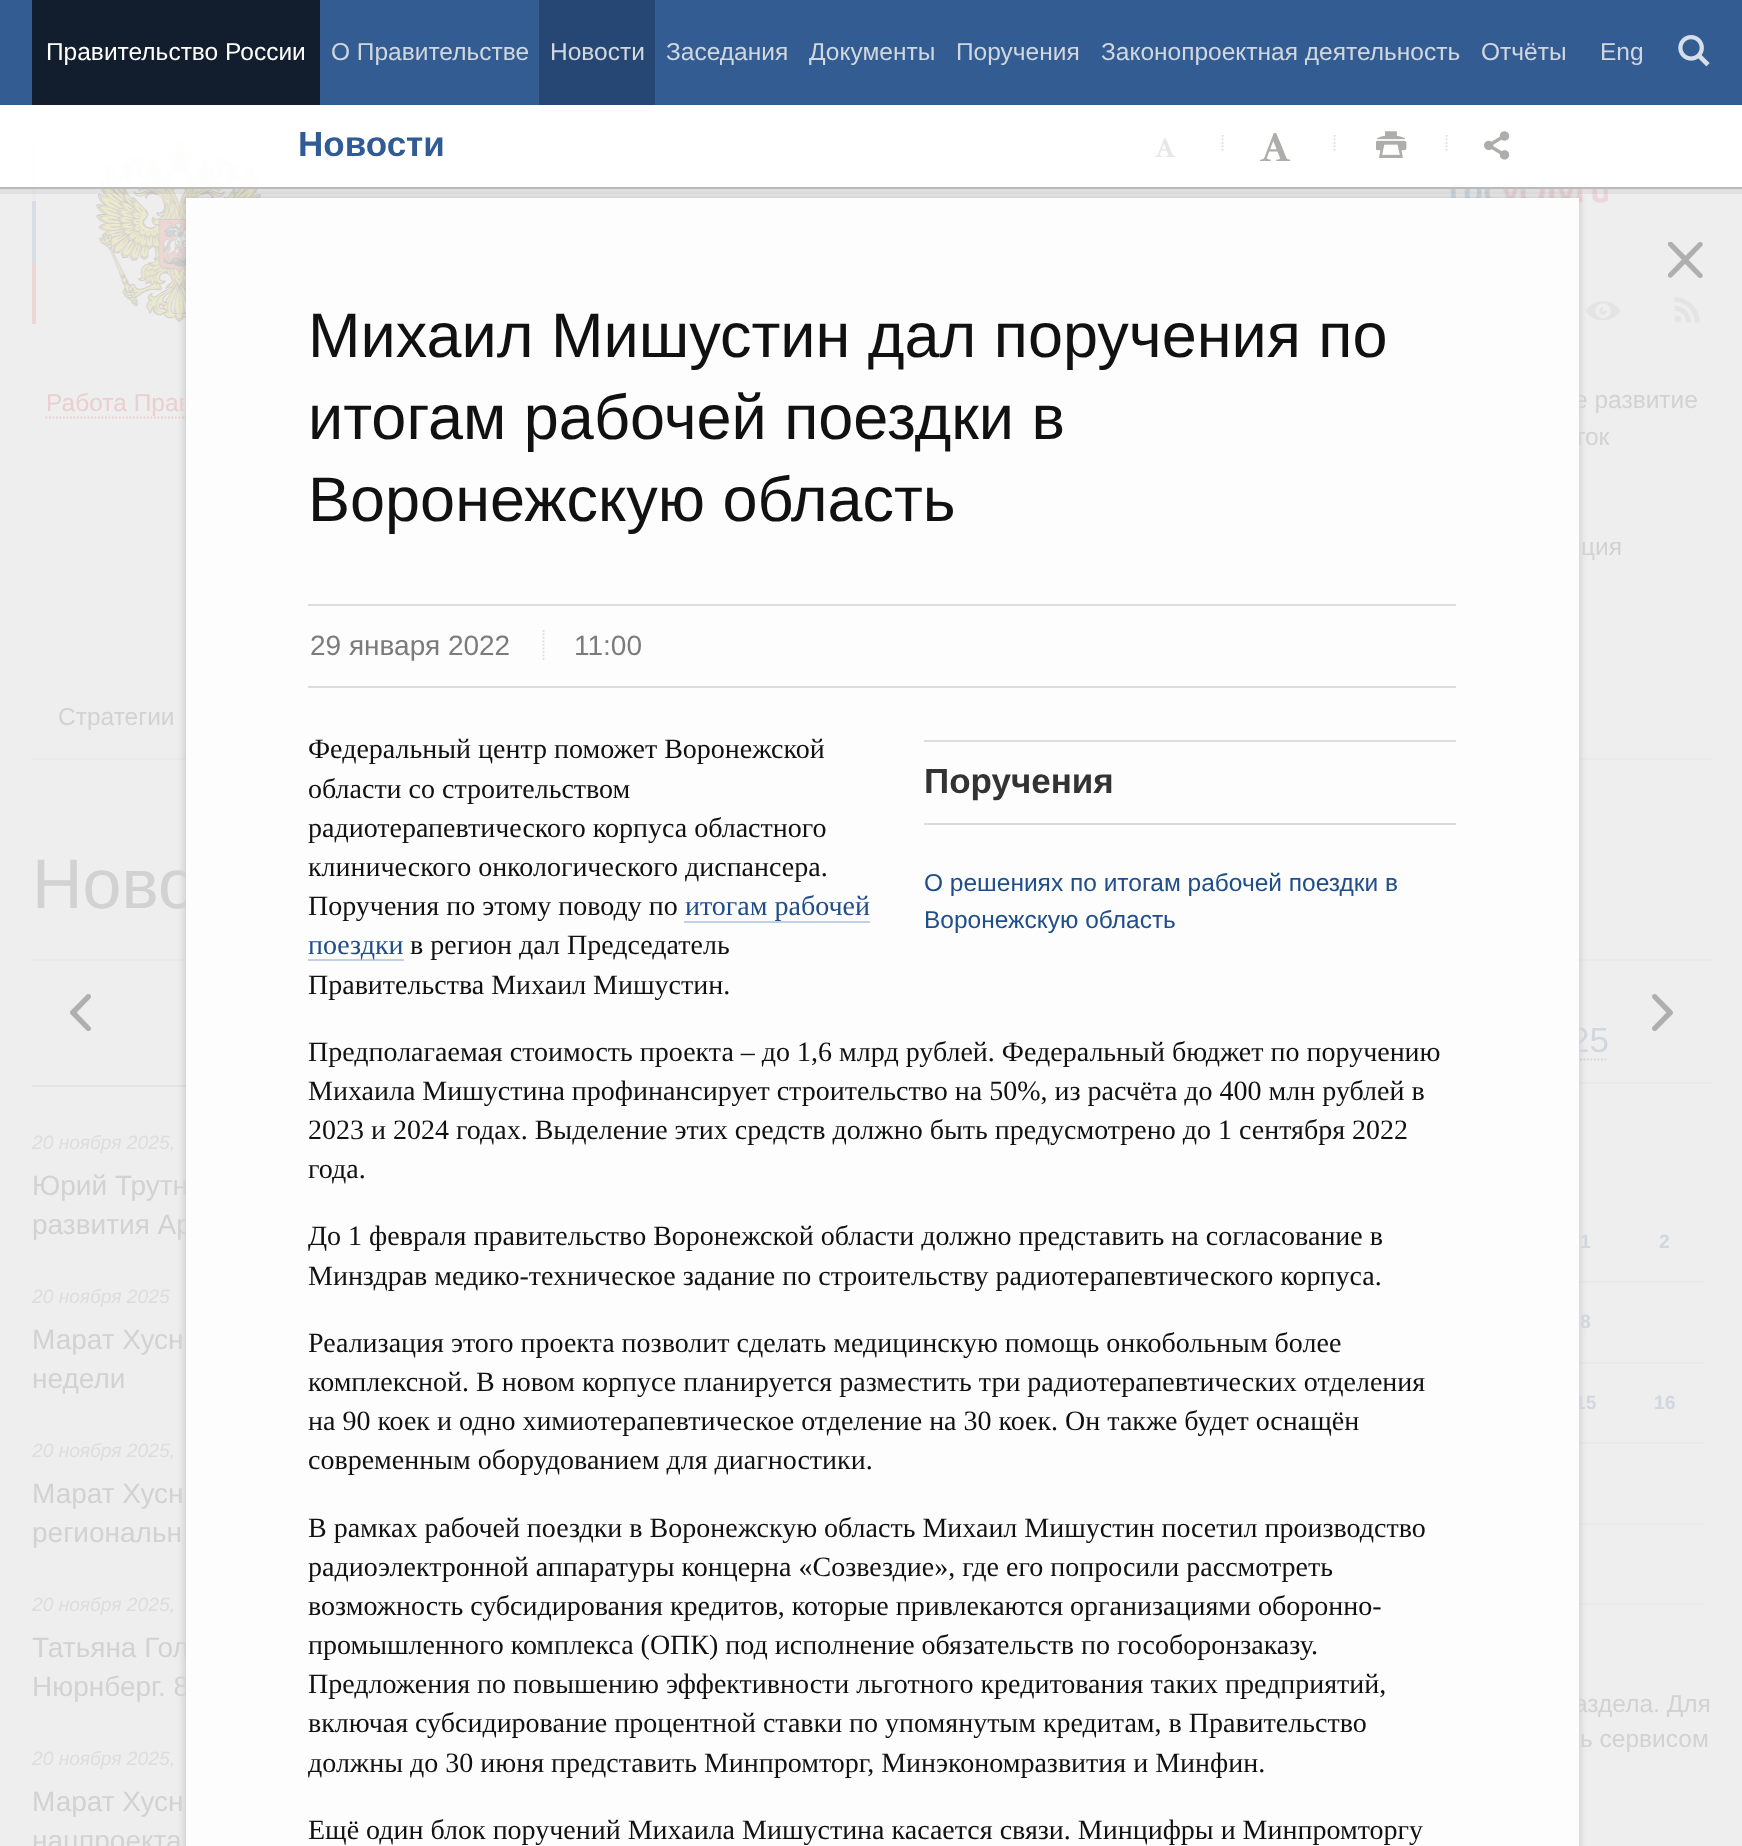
<svg xmlns="http://www.w3.org/2000/svg" width="1742" height="1846">
<rect width="100%" height="100%" fill="#eee"/>
<image x="96" y="140" width="166" height="182" href="media/7.png"/>
<image x="1450" y="183" width="158" height="20" href="media/8.png"/>
<image x="1586" y="301" width="35" height="19" href="media/9.png"/>
<path d="M45.5 417.5h260.5" fill="none" stroke="#e9d0ce" stroke-width="1.8" stroke-dasharray="1.75 1.75"/>
<rect x="32" y="758" width="1680" height="2" fill="#eaeaea"/>
<rect x="32" y="959" width="1680" height="2" fill="#eaeaea"/>
<rect x="32" y="1085" width="154" height="2" fill="#e4e4e4"/>
<rect x="1579" y="1082" width="133" height="2" fill="#eaeaea"/>
<path d="M1531 1059.5h77" fill="none" stroke="#d1d7df" stroke-width="1.8" stroke-dasharray="1.75 1.75"/>
<rect x="1579" y="1281" width="126" height="2" fill="#eaeaea"/>
<rect x="1579" y="1362" width="126" height="2" fill="#eaeaea"/>
<rect x="1579" y="1442" width="126" height="2" fill="#eaeaea"/>
<rect x="1579" y="1523" width="126" height="2" fill="#eaeaea"/>
<rect x="1579" y="1603" width="126" height="2" fill="#eaeaea"/>
<rect x="184" y="196" width="1396" height="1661" fill="#00000024" filter="blur(3.5px)"/>
<rect x="32" y="140" width="4" height="61" fill="#ebebeb"/>
<rect x="-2.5" y="-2.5" width="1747" height="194" fill="none" stroke="#32323212" stroke-width="5"/>
<rect width="1742" height="105" fill="#325c92"/>
<rect x="32" width="288" height="105" fill="#121d2d"/>
<text x="46" y="60" style="font-family:Liberation Sans;font-size:24.5px;fill:#fff">Правительство России</text>
<text x="331" y="60" style="font-family:Liberation Sans;font-size:24.5px;fill:#d1d7df">О Правительстве</text>
<rect x="539" width="116" height="105" fill="#264773"/>
<text x="550" y="60" style="font-family:Liberation Sans;font-size:24.5px;fill:#d1d7df">Новости</text>
<text x="666" y="60" style="font-family:Liberation Sans;font-size:24.5px;fill:#d1d7df">Заседания</text>
<text x="809" y="60" style="font-family:Liberation Sans;font-size:24.5px;fill:#d1d7df">Документы</text>
<text x="956" y="60" style="font-family:Liberation Sans;font-size:24.5px;fill:#d1d7df">Поручения</text>
<text x="1101" y="60" style="font-family:Liberation Sans;font-size:24.5px;fill:#d1d7df">Законопроектная деятельность</text>
<text x="1481" y="60" style="font-family:Liberation Sans;font-size:24.5px;fill:#d1d7df">Отчёты</text>
<text x="1600" y="60" style="font-family:Liberation Sans;font-size:24.5px;fill:#d1d7df">Eng</text>
<image x="1678" y="35" width="32" height="32" href="media/1.png"/>
<rect y="105" width="1742" height="82" fill="#fffffff2"/>
<rect y="187" width="1742" height="2" fill="#bababa"/>
<text x="298" y="156" style="font-family:Liberation Sans;font-size:35px;font-weight:bold;fill:#305b94">Новости</text>
<image x="1155" y="138" width="20" height="19" href="media/2.png"/>
<path d="M1222.5 135v15.5" fill="none" stroke="#dbdbdb" stroke-width="1.8" stroke-dasharray="1.75 1.75"/>
<image x="1260" y="133" width="31" height="28" href="media/3.png"/>
<path d="M1334.5 135v15.5" fill="none" stroke="#dbdbdb" stroke-width="1.8" stroke-dasharray="1.75 1.75"/>
<image x="1376" y="131" width="31" height="27" href="media/4.png"/>
<path d="M1446.5 135v15.5" fill="none" stroke="#dbdbdb" stroke-width="1.8" stroke-dasharray="1.75 1.75"/>
<image x="1484" y="131" width="26" height="29" href="media/5.png"/>
<text x="46" y="411" style="font-family:Liberation Sans;font-size:24.5px;fill:#e9d0ce">Работа Прав</text>
<text x="1574" y="408" style="font-family:Liberation Sans;font-size:24.5px;fill:#d2d2d2">е развитие</text>
<text x="1574" y="445" style="font-family:Liberation Sans;font-size:24.5px;fill:#d2d2d2">ток</text>
<text x="32" y="908" style="font-family:Liberation Sans;font-size:70px;fill:#d2d2d2">Ново</text>
<text x="32" y="1234" style="font-family:Liberation Sans;font-size:28px;fill:#d2d2d2">развития Ар</text>
<text x="32" y="1657" style="font-family:Liberation Sans;font-size:28px;fill:#d2d2d2">Татьяна Гол</text>
<text x="32" y="1696" style="font-family:Liberation Sans;font-size:28px;fill:#d2d2d2">Нюрнберг. 8</text>
<text x="1570" y="1052" style="font-family:Liberation Sans;font-size:35px;fill:#d1d7df">25</text>
<text x="1575" y="1409" style="font-family:Liberation Sans;font-size:19.25px;font-weight:bold;fill:#d1d7df">15</text>
<text x="1574" y="1712" style="font-family:Liberation Sans;font-size:24.5px;fill:#d2d2d2">аздела. Для</text>
<rect x="186" y="198" width="1393" height="1648" fill="#fdfdfd"/>
<text x="308" y="357" style="font-family:Liberation Sans;font-size:63px;fill:#111">Михаил Мишустин дал поручения по</text>
<text x="308" y="439" style="font-family:Liberation Sans;font-size:63px;fill:#111">итогам рабочей поездки в</text>
<text x="308" y="521" style="font-family:Liberation Sans;font-size:63px;fill:#111">Воронежскую область</text>
<rect x="308" y="604" width="1148" height="2" fill="#dcdcdc"/>
<rect x="308" y="686" width="1148" height="2" fill="#dcdcdc"/>
<text x="310" y="655" style="font-family:Liberation Sans;font-size:28px;fill:#7b7b7b">29 января 2022</text>
<text x="574" y="655" style="font-family:Liberation Sans;font-size:28px;fill:#7b7b7b">11:00</text>
<path d="M543.5 630v30" fill="none" stroke="#dcdcdc" stroke-width="1.8" stroke-dasharray="1.75 1.75"/>
<text x="308" y="758" style="font-family:Liberation Serif;font-size:28px;fill:#111">Федеральный центр поможет Воронежской</text>
<text x="308" y="798" style="font-family:Liberation Serif;font-size:28px;fill:#111">области со строительством</text>
<text x="308" y="837" style="font-family:Liberation Serif;font-size:28px;fill:#111">радиотерапевтического корпуса областного</text>
<text x="308" y="876" style="font-family:Liberation Serif;font-size:28px;fill:#111">клинического онкологического диспансера.</text>
<text x="308" y="915" style="font-family:Liberation Serif;font-size:28px;fill:#111">Поручения по этому поводу по</text>
<text x="685" y="915" style="font-family:Liberation Serif;font-size:28px;fill:#204e8a">итогам рабочей</text>
<rect x="684" y="921" width="186" height="2" fill="#c0d1e7"/>
<rect x="308" y="959" width="96" height="2" fill="#c0d1e7"/>
<text x="308" y="954" style="font-family:Liberation Serif;font-size:28px;fill:#204e8a">поездки</text>
<text x="410" y="954" style="font-family:Liberation Serif;font-size:28px;fill:#111">в регион дал Председатель</text>
<text x="308" y="994" style="font-family:Liberation Serif;font-size:28px;fill:#111">Правительства Михаил Мишустин.</text>
<rect x="924" y="740" width="532" height="2" fill="#dcdcdc"/>
<rect x="924" y="823" width="532" height="2" fill="#dcdcdc"/>
<text x="924" y="793" style="font-family:Liberation Sans;font-size:35px;font-weight:bold;fill:#333">Поручения</text>
<text x="924" y="891" style="font-family:Liberation Sans;font-size:24.5px;fill:#204e8a">О решениях по итогам рабочей поездки в</text>
<text x="924" y="928" style="font-family:Liberation Sans;font-size:24.5px;fill:#204e8a">Воронежскую область</text>
<text x="308" y="1061" style="font-family:Liberation Serif;font-size:28px;fill:#111">Предполагаемая стоимость проекта – до 1,6 млрд рублей. Федеральный бюджет по поручению</text>
<text x="308" y="1100" style="font-family:Liberation Serif;font-size:28px;fill:#111">Михаила Мишустина профинансирует строительство на 50%, из расчёта до 400 млн рублей в</text>
<text x="308" y="1139" style="font-family:Liberation Serif;font-size:28px;fill:#111">2023 и 2024 годах. Выделение этих средств должно быть предусмотрено до 1 сентября 2022</text>
<text x="308" y="1178" style="font-family:Liberation Serif;font-size:28px;fill:#111">года.</text>
<text x="308" y="1245" style="font-family:Liberation Serif;font-size:28px;fill:#111">До 1 февраля правительство Воронежской области должно представить на согласование в</text>
<text x="308" y="1285" style="font-family:Liberation Serif;font-size:28px;fill:#111">Минздрав медико-техническое задание по строительству радиотерапевтического корпуса.</text>
<text x="308" y="1352" style="font-family:Liberation Serif;font-size:28px;fill:#111">Реализация этого проекта позволит сделать медицинскую помощь онкобольным более</text>
<text x="308" y="1391" style="font-family:Liberation Serif;font-size:28px;fill:#111">комплексной. В новом корпусе планируется разместить три радиотерапевтических отделения</text>
<text x="308" y="1430" style="font-family:Liberation Serif;font-size:28px;fill:#111">на 90 коек и одно химиотерапевтическое отделение на 30 коек. Он также будет оснащён</text>
<text x="308" y="1469" style="font-family:Liberation Serif;font-size:28px;fill:#111">современным оборудованием для диагностики.</text>
<text x="308" y="1537" style="font-family:Liberation Serif;font-size:28px;fill:#111">В рамках рабочей поездки в Воронежскую область Михаил Мишустин посетил производство</text>
<text x="308" y="1576" style="font-family:Liberation Serif;font-size:28px;fill:#111">радиоэлектронной аппаратуры концерна «Созвездие», где его попросили рассмотреть</text>
<text x="308" y="1615" style="font-family:Liberation Serif;font-size:28px;fill:#111">возможность субсидирования кредитов, которые привлекаются организациями оборонно-</text>
<text x="308" y="1654" style="font-family:Liberation Serif;font-size:28px;fill:#111">промышленного комплекса (ОПК) под исполнение обязательств по гособоронзаказу.</text>
<text x="308" y="1693" style="font-family:Liberation Serif;font-size:28px;fill:#111">Предложения по повышению эффективности льготного кредитования таких предприятий,</text>
<text x="308" y="1732" style="font-family:Liberation Serif;font-size:28px;fill:#111">включая субсидирование процентной ставки по упомянутым кредитам, в Правительство</text>
<text x="308" y="1772" style="font-family:Liberation Serif;font-size:28px;fill:#111">должны до 30 июня представить Минпромторг, Минэкономразвития и Минфин.</text>
<text x="308" y="1839" style="font-family:Liberation Serif;font-size:28px;fill:#111">Ещё один блок поручений Михаила Мишустина касается связи. Минцифры и Минпромторгу</text>
<image x="1668" y="242" width="35" height="36" href="media/6.png"/>
<rect x="32" y="201" width="4" height="62" fill="#d6dde5"/>
<rect x="32" y="263" width="4" height="61" fill="#ecd7d5"/>
<image x="1674" y="297" width="26" height="26" href="media/10.png"/>
<text x="1581" y="555" style="font-family:Liberation Sans;font-size:24.5px;fill:#d2d2d2">ция</text>
<text x="58" y="725" style="font-family:Liberation Sans;font-size:24.5px;fill:#d2d2d2">Стратегии</text>
<text x="32" y="1149" style="font-family:Liberation Sans;font-size:19.25px;font-style:italic;fill:#ddd">20 ноября 2025,</text>
<text x="32" y="1195" style="font-family:Liberation Sans;font-size:28px;fill:#d2d2d2">Юрий Трутн</text>
<text x="32" y="1303" style="font-family:Liberation Sans;font-size:19.25px;font-style:italic;fill:#ddd">20 ноября 2025</text>
<text x="32" y="1349" style="font-family:Liberation Sans;font-size:28px;fill:#d2d2d2">Марат Хусн</text>
<text x="32" y="1388" style="font-family:Liberation Sans;font-size:28px;fill:#d2d2d2">недели</text>
<text x="32" y="1457" style="font-family:Liberation Sans;font-size:19.25px;font-style:italic;fill:#ddd">20 ноября 2025,</text>
<text x="32" y="1503" style="font-family:Liberation Sans;font-size:28px;fill:#d2d2d2">Марат Хусн</text>
<text x="32" y="1542" style="font-family:Liberation Sans;font-size:28px;fill:#d2d2d2">региональн</text>
<text x="32" y="1611" style="font-family:Liberation Sans;font-size:19.25px;font-style:italic;fill:#ddd">20 ноября 2025,</text>
<text x="32" y="1765" style="font-family:Liberation Sans;font-size:19.25px;font-style:italic;fill:#ddd">20 ноября 2025,</text>
<text x="32" y="1811" style="font-family:Liberation Sans;font-size:28px;fill:#d2d2d2">Марат Хусн</text>
<text x="32" y="1850" style="font-family:Liberation Sans;font-size:28px;fill:#d2d2d2">нацпроекта</text>
<text x="1580" y="1248" style="font-family:Liberation Sans;font-size:19.25px;font-weight:bold;fill:#d1d7df">1</text>
<text x="1659" y="1248" style="font-family:Liberation Sans;font-size:19.25px;font-weight:bold;fill:#d1d7df">2</text>
<text x="1580" y="1328" style="font-family:Liberation Sans;font-size:19.25px;font-weight:bold;fill:#d1d7df">8</text>
<text x="1654" y="1409" style="font-family:Liberation Sans;font-size:19.25px;font-weight:bold;fill:#d1d7df">16</text>
<text x="1580" y="1747" style="font-family:Liberation Sans;font-size:24.5px;fill:#d2d2d2">ь сервисом</text>
<image x="70" y="994" width="21" height="37" href="media/11.png"/>
<image x="1652" y="994" width="21" height="37" href="media/12.png"/>
</svg>
